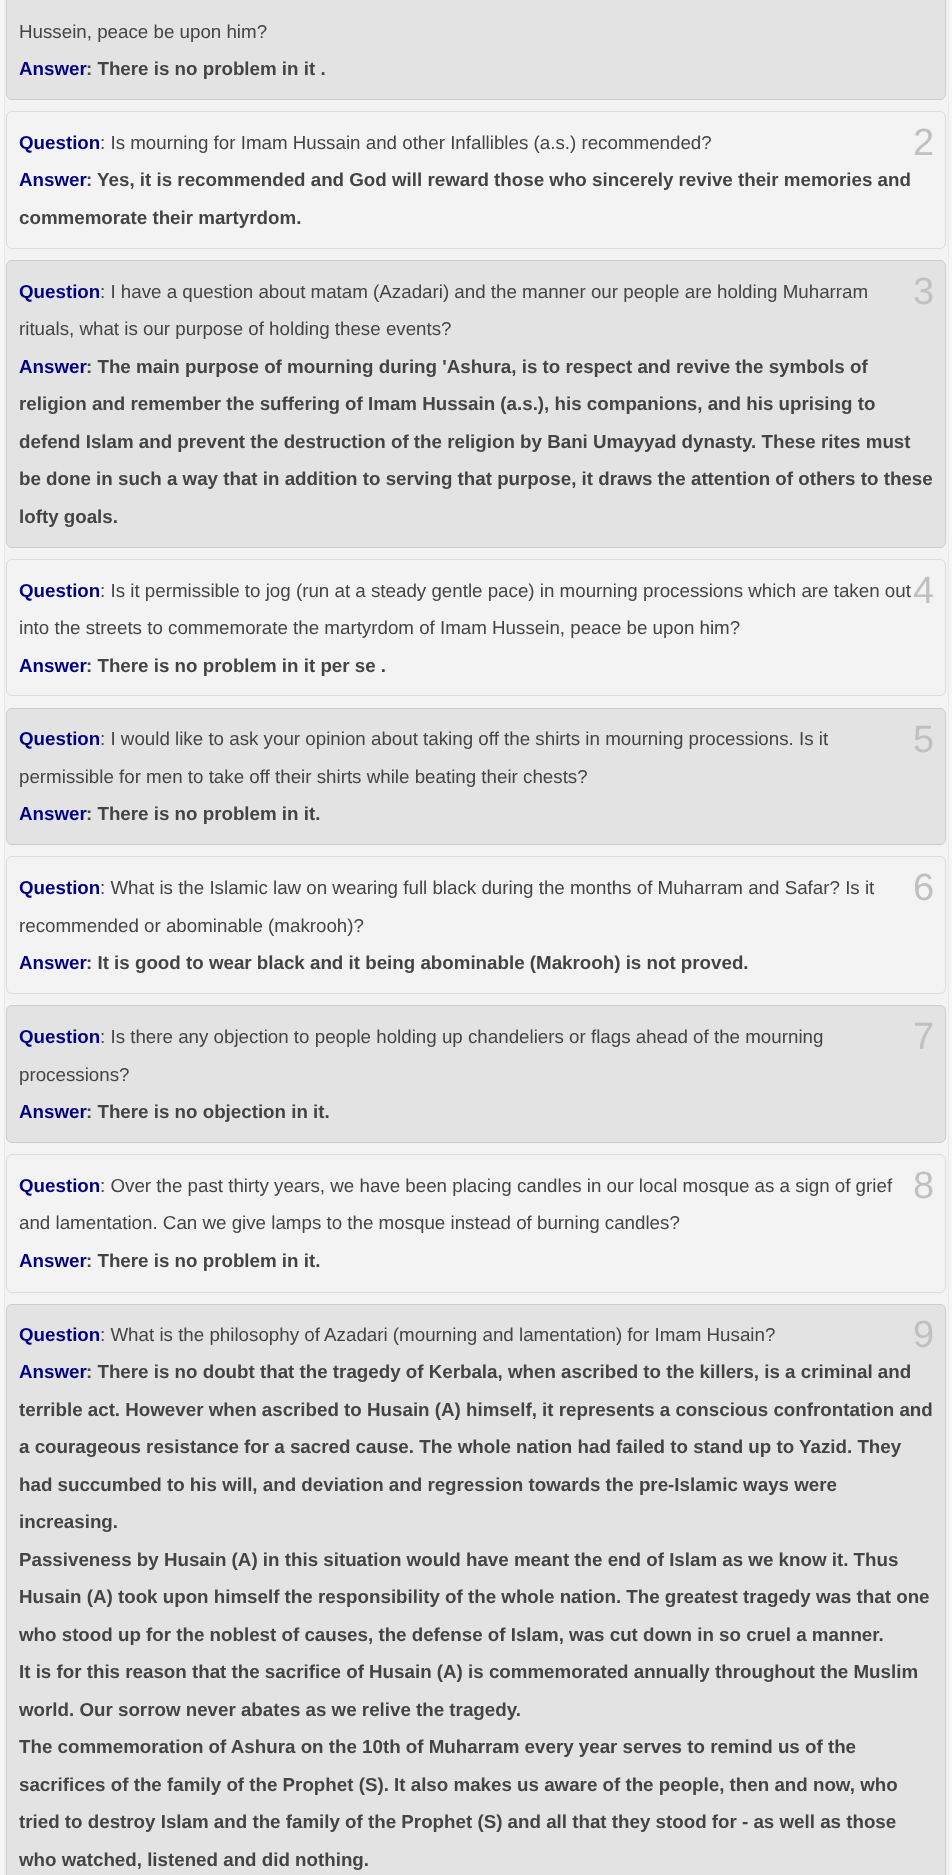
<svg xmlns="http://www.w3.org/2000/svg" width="952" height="1875">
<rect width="100%" height="100%" fill="#f7f7f7"/>
<rect x="4.5" y="-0.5" width="944" height="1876" fill="#f3f3f3" stroke="#e8e8e8"/>
<rect x="6.5" y="-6.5" width="939" height="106" rx="5.5" fill="#e3e3e3" stroke="#ccc"/>
<text x="19" y="38" style="font-family:Liberation Sans;font-size:18.75px;fill:#444">Hussein, peace be upon him?</text>
<text x="19" y="75" style="font-family:Liberation Sans;font-size:18.75px;font-weight:bold;fill:#000080">Answer</text>
<text x="86" y="75" style="font-family:Liberation Sans;font-size:18.75px;font-weight:bold;fill:#444">: There is no problem in it .</text>
<rect x="6.5" y="111.5" width="939" height="137" rx="5.5" fill="none" stroke="#ddd"/>
<text x="19" y="149" style="font-family:Liberation Sans;font-size:18.75px;font-weight:bold;fill:#000080">Question</text>
<text x="100" y="149" style="font-family:Liberation Sans;font-size:18.75px;fill:#444">: Is mourning for Imam Hussain and other Infallibles (a.s.) recommended?</text>
<text x="19" y="186" style="font-family:Liberation Sans;font-size:18.75px;font-weight:bold;fill:#000080">Answer</text>
<text x="86" y="186" style="font-family:Liberation Sans;font-size:18.75px;font-weight:bold;fill:#444">: Yes, it is recommended and God will reward those who sincerely revive their memories and</text>
<text x="19" y="224" style="font-family:Liberation Sans;font-size:18.75px;font-weight:bold;fill:#444">commemorate their martyrdom.</text>
<text x="913" y="155" style="font-family:Liberation Sans;font-size:38px;fill:#c0c0c0">2</text>
<rect x="6.5" y="260.5" width="939" height="287" rx="5.5" fill="#e3e3e3" stroke="#ccc"/>
<text x="913" y="304" style="font-family:Liberation Sans;font-size:38px;fill:#c0c0c0">3</text>
<text x="19" y="298" style="font-family:Liberation Sans;font-size:18.75px;font-weight:bold;fill:#000080">Question</text>
<text x="100" y="298" style="font-family:Liberation Sans;font-size:18.75px;fill:#444">: I have a question about matam (Azadari) and the manner our people are holding Muharram</text>
<text x="19" y="335" style="font-family:Liberation Sans;font-size:18.75px;fill:#444">rituals, what is our purpose of holding these events?</text>
<text x="19" y="373" style="font-family:Liberation Sans;font-size:18.75px;font-weight:bold;fill:#000080">Answer</text>
<text x="86" y="373" style="font-family:Liberation Sans;font-size:18.75px;font-weight:bold;fill:#444">: The main purpose of mourning during 'Ashura, is to respect and revive the symbols of</text>
<text x="19" y="410" style="font-family:Liberation Sans;font-size:18.75px;font-weight:bold;fill:#444">religion and remember the suffering of Imam Hussain (a.s.), his companions, and his uprising to</text>
<text x="19" y="448" style="font-family:Liberation Sans;font-size:18.75px;font-weight:bold;fill:#444">defend Islam and prevent the destruction of the religion by Bani Umayyad dynasty. These rites must</text>
<text x="19" y="485" style="font-family:Liberation Sans;font-size:18.75px;font-weight:bold;fill:#444">be done in such a way that in addition to serving that purpose, it draws the attention of others to these</text>
<text x="19" y="523" style="font-family:Liberation Sans;font-size:18.75px;font-weight:bold;fill:#444">lofty goals.</text>
<rect x="6.5" y="559.5" width="939" height="136" rx="5.5" fill="none" stroke="#ddd"/>
<text x="19" y="597" style="font-family:Liberation Sans;font-size:18.75px;font-weight:bold;fill:#000080">Question</text>
<text x="100" y="597" style="font-family:Liberation Sans;font-size:18.75px;fill:#444">: Is it permissible to jog (run at a steady gentle pace) in mourning processions which are taken out</text>
<text x="19" y="634" style="font-family:Liberation Sans;font-size:18.75px;fill:#444">into the streets to commemorate the martyrdom of Imam Hussein, peace be upon him?</text>
<text x="19" y="672" style="font-family:Liberation Sans;font-size:18.75px;font-weight:bold;fill:#000080">Answer</text>
<text x="86" y="672" style="font-family:Liberation Sans;font-size:18.75px;font-weight:bold;fill:#444">: There is no problem in it per se .</text>
<text x="913" y="603" style="font-family:Liberation Sans;font-size:38px;fill:#c0c0c0">4</text>
<rect x="6.5" y="708.5" width="939" height="136" rx="5.5" fill="#e3e3e3" stroke="#ccc"/>
<text x="19" y="745" style="font-family:Liberation Sans;font-size:18.75px;font-weight:bold;fill:#000080">Question</text>
<text x="100" y="745" style="font-family:Liberation Sans;font-size:18.75px;fill:#444">: I would like to ask your opinion about taking off the shirts in mourning processions. Is it</text>
<text x="19" y="783" style="font-family:Liberation Sans;font-size:18.75px;fill:#444">permissible for men to take off their shirts while beating their chests?</text>
<text x="19" y="820" style="font-family:Liberation Sans;font-size:18.75px;font-weight:bold;fill:#000080">Answer</text>
<text x="86" y="820" style="font-family:Liberation Sans;font-size:18.75px;font-weight:bold;fill:#444">: There is no problem in it.</text>
<text x="913" y="752" style="font-family:Liberation Sans;font-size:38px;fill:#c0c0c0">5</text>
<rect x="6.5" y="856.5" width="939" height="137" rx="5.5" fill="none" stroke="#ddd"/>
<text x="19" y="894" style="font-family:Liberation Sans;font-size:18.75px;font-weight:bold;fill:#000080">Question</text>
<text x="100" y="894" style="font-family:Liberation Sans;font-size:18.75px;fill:#444">: What is the Islamic law on wearing full black during the months of Muharram and Safar? Is it</text>
<text x="19" y="932" style="font-family:Liberation Sans;font-size:18.75px;fill:#444">recommended or abominable (makrooh)?</text>
<text x="19" y="969" style="font-family:Liberation Sans;font-size:18.75px;font-weight:bold;fill:#000080">Answer</text>
<text x="86" y="969" style="font-family:Liberation Sans;font-size:18.75px;font-weight:bold;fill:#444">: It is good to wear black and it being abominable (Makrooh) is not proved.</text>
<text x="913" y="900" style="font-family:Liberation Sans;font-size:38px;fill:#c0c0c0">6</text>
<rect x="6.5" y="1005.5" width="939" height="137" rx="5.5" fill="#e3e3e3" stroke="#ccc"/>
<text x="19" y="1043" style="font-family:Liberation Sans;font-size:18.75px;font-weight:bold;fill:#000080">Question</text>
<text x="100" y="1043" style="font-family:Liberation Sans;font-size:18.75px;fill:#444">: Is there any objection to people holding up chandeliers or flags ahead of the mourning</text>
<text x="19" y="1081" style="font-family:Liberation Sans;font-size:18.75px;fill:#444">processions?</text>
<text x="19" y="1118" style="font-family:Liberation Sans;font-size:18.75px;font-weight:bold;fill:#000080">Answer</text>
<text x="86" y="1118" style="font-family:Liberation Sans;font-size:18.75px;font-weight:bold;fill:#444">: There is no objection in it.</text>
<text x="913" y="1049" style="font-family:Liberation Sans;font-size:38px;fill:#c0c0c0">7</text>
<rect x="6.5" y="1154.5" width="939" height="138" rx="5.5" fill="none" stroke="#ddd"/>
<text x="19" y="1192" style="font-family:Liberation Sans;font-size:18.75px;font-weight:bold;fill:#000080">Question</text>
<text x="100" y="1192" style="font-family:Liberation Sans;font-size:18.75px;fill:#444">: Over the past thirty years, we have been placing candles in our local mosque as a sign of grief</text>
<text x="19" y="1229" style="font-family:Liberation Sans;font-size:18.75px;fill:#444">and lamentation. Can we give lamps to the mosque instead of burning candles?</text>
<text x="19" y="1267" style="font-family:Liberation Sans;font-size:18.75px;font-weight:bold;fill:#000080">Answer</text>
<text x="86" y="1267" style="font-family:Liberation Sans;font-size:18.75px;font-weight:bold;fill:#444">: There is no problem in it.</text>
<text x="913" y="1198" style="font-family:Liberation Sans;font-size:38px;fill:#c0c0c0">8</text>
<rect x="6.5" y="1304.5" width="939" height="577" rx="5.5" fill="#e3e3e3" stroke="#ccc"/>
<text x="913" y="1347" style="font-family:Liberation Sans;font-size:38px;fill:#c0c0c0">9</text>
<text x="19" y="1341" style="font-family:Liberation Sans;font-size:18.75px;font-weight:bold;fill:#000080">Question</text>
<text x="100" y="1341" style="font-family:Liberation Sans;font-size:18.75px;fill:#444">: What is the philosophy of Azadari (mourning and lamentation) for Imam Husain?</text>
<text x="19" y="1378" style="font-family:Liberation Sans;font-size:18.75px;font-weight:bold;fill:#000080">Answer</text>
<text x="86" y="1378" style="font-family:Liberation Sans;font-size:18.75px;font-weight:bold;fill:#444">: There is no doubt that the tragedy of Kerbala, when ascribed to the killers, is a criminal and</text>
<text x="19" y="1416" style="font-family:Liberation Sans;font-size:18.75px;font-weight:bold;fill:#444">terrible act. However when ascribed to Husain (A) himself, it represents a conscious confrontation and</text>
<text x="19" y="1453" style="font-family:Liberation Sans;font-size:18.75px;font-weight:bold;fill:#444">a courageous resistance for a sacred cause. The whole nation had failed to stand up to Yazid. They</text>
<text x="19" y="1491" style="font-family:Liberation Sans;font-size:18.75px;font-weight:bold;fill:#444">had succumbed to his will, and deviation and regression towards the pre-Islamic ways were</text>
<text x="19" y="1528" style="font-family:Liberation Sans;font-size:18.75px;font-weight:bold;fill:#444">increasing.</text>
<text x="19" y="1566" style="font-family:Liberation Sans;font-size:18.75px;font-weight:bold;fill:#444">Passiveness by Husain (A) in this situation would have meant the end of Islam as we know it. Thus</text>
<text x="19" y="1603" style="font-family:Liberation Sans;font-size:18.75px;font-weight:bold;fill:#444">Husain (A) took upon himself the responsibility of the whole nation. The greatest tragedy was that one</text>
<text x="19" y="1641" style="font-family:Liberation Sans;font-size:18.75px;font-weight:bold;fill:#444">who stood up for the noblest of causes, the defense of Islam, was cut down in so cruel a manner.</text>
<text x="19" y="1678" style="font-family:Liberation Sans;font-size:18.75px;font-weight:bold;fill:#444">It is for this reason that the sacrifice of Husain (A) is commemorated annually throughout the Muslim</text>
<text x="19" y="1716" style="font-family:Liberation Sans;font-size:18.75px;font-weight:bold;fill:#444">world. Our sorrow never abates as we relive the tragedy.</text>
<text x="19" y="1753" style="font-family:Liberation Sans;font-size:18.75px;font-weight:bold;fill:#444">The commemoration of Ashura on the 10th of Muharram every year serves to remind us of the</text>
<text x="19" y="1791" style="font-family:Liberation Sans;font-size:18.75px;font-weight:bold;fill:#444">sacrifices of the family of the Prophet (S). It also makes us aware of the people, then and now, who</text>
<text x="19" y="1828" style="font-family:Liberation Sans;font-size:18.75px;font-weight:bold;fill:#444">tried to destroy Islam and the family of the Prophet (S) and all that they stood for - as well as those</text>
<text x="19" y="1866" style="font-family:Liberation Sans;font-size:18.75px;font-weight:bold;fill:#444">who watched, listened and did nothing.</text>
</svg>
